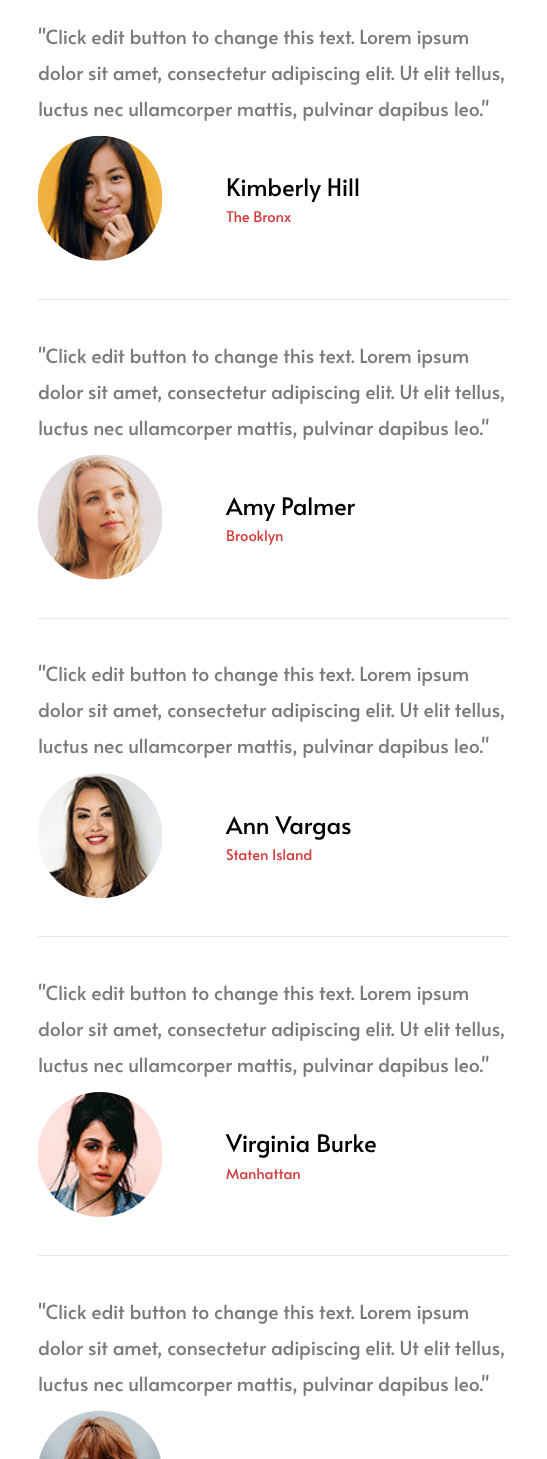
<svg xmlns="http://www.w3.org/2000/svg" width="547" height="1459">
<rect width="100%" height="100%" fill="#fff"/>
<text x="38" y="44" style="font-family:Alata;font-size:19.4px;fill:#7a7a7a">"Click edit button to change this text. Lorem ipsum</text>
<text x="38" y="80" style="font-family:Alata;font-size:19.4px;fill:#7a7a7a">dolor sit amet, consectetur adipiscing elit. Ut elit tellus,</text>
<text x="38" y="116" style="font-family:Alata;font-size:19.4px;fill:#7a7a7a">luctus nec ullamcorper mattis, pulvinar dapibus leo."</text>
<image x="37" y="135" width="126" height="126" href="media/1.png"/>
<text x="226" y="196" style="font-family:Alata;font-size:24px;fill:#000">Kimberly Hill</text>
<text x="226" y="222" style="font-family:Alata;font-size:14.75px;fill:#d53c3c">The Bronx</text>
<rect x="38" y="299" width="472" height="1" fill="#e6e6e6"/>
<text x="38" y="363" style="font-family:Alata;font-size:19.4px;fill:#7a7a7a">"Click edit button to change this text. Lorem ipsum</text>
<text x="38" y="399" style="font-family:Alata;font-size:19.4px;fill:#7a7a7a">dolor sit amet, consectetur adipiscing elit. Ut elit tellus,</text>
<text x="38" y="435" style="font-family:Alata;font-size:19.4px;fill:#7a7a7a">luctus nec ullamcorper mattis, pulvinar dapibus leo."</text>
<image x="37" y="454" width="126" height="126" href="media/2.png"/>
<text x="226" y="515" style="font-family:Alata;font-size:24px;fill:#000">Amy Palmer</text>
<text x="226" y="541" style="font-family:Alata;font-size:14.75px;fill:#d53c3c">Brooklyn</text>
<rect x="38" y="618" width="472" height="1" fill="#e6e6e6"/>
<text x="38" y="681" style="font-family:Alata;font-size:19.4px;fill:#7a7a7a">"Click edit button to change this text. Lorem ipsum</text>
<text x="38" y="717" style="font-family:Alata;font-size:19.4px;fill:#7a7a7a">dolor sit amet, consectetur adipiscing elit. Ut elit tellus,</text>
<text x="38" y="753" style="font-family:Alata;font-size:19.4px;fill:#7a7a7a">luctus nec ullamcorper mattis, pulvinar dapibus leo."</text>
<image x="38" y="773" width="125" height="126" href="media/3.png"/>
<text x="226" y="834" style="font-family:Alata;font-size:24px;fill:#000">Ann Vargas</text>
<text x="226" y="860" style="font-family:Alata;font-size:14.75px;fill:#d53c3c">Staten Island</text>
<rect x="38" y="936" width="472" height="1" fill="#e6e6e6"/>
<text x="38" y="1000" style="font-family:Alata;font-size:19.4px;fill:#7a7a7a">"Click edit button to change this text. Lorem ipsum</text>
<text x="38" y="1036" style="font-family:Alata;font-size:19.4px;fill:#7a7a7a">dolor sit amet, consectetur adipiscing elit. Ut elit tellus,</text>
<text x="38" y="1072" style="font-family:Alata;font-size:19.4px;fill:#7a7a7a">luctus nec ullamcorper mattis, pulvinar dapibus leo."</text>
<image x="37" y="1092" width="126" height="125" href="media/4.png"/>
<text x="226" y="1152" style="font-family:Alata;font-size:24px;fill:#000">Virginia Burke</text>
<text x="226" y="1179" style="font-family:Alata;font-size:14.75px;fill:#d53c3c">Manhattan</text>
<rect x="38" y="1255" width="472" height="1" fill="#e6e6e6"/>
<text x="38" y="1319" style="font-family:Alata;font-size:19.4px;fill:#7a7a7a">"Click edit button to change this text. Lorem ipsum</text>
<text x="38" y="1355" style="font-family:Alata;font-size:19.4px;fill:#7a7a7a">dolor sit amet, consectetur adipiscing elit. Ut elit tellus,</text>
<text x="38" y="1391" style="font-family:Alata;font-size:19.4px;fill:#7a7a7a">luctus nec ullamcorper mattis, pulvinar dapibus leo."</text>
<image x="39" y="1411" width="122" height="48" href="media/5.png"/>
</svg>
